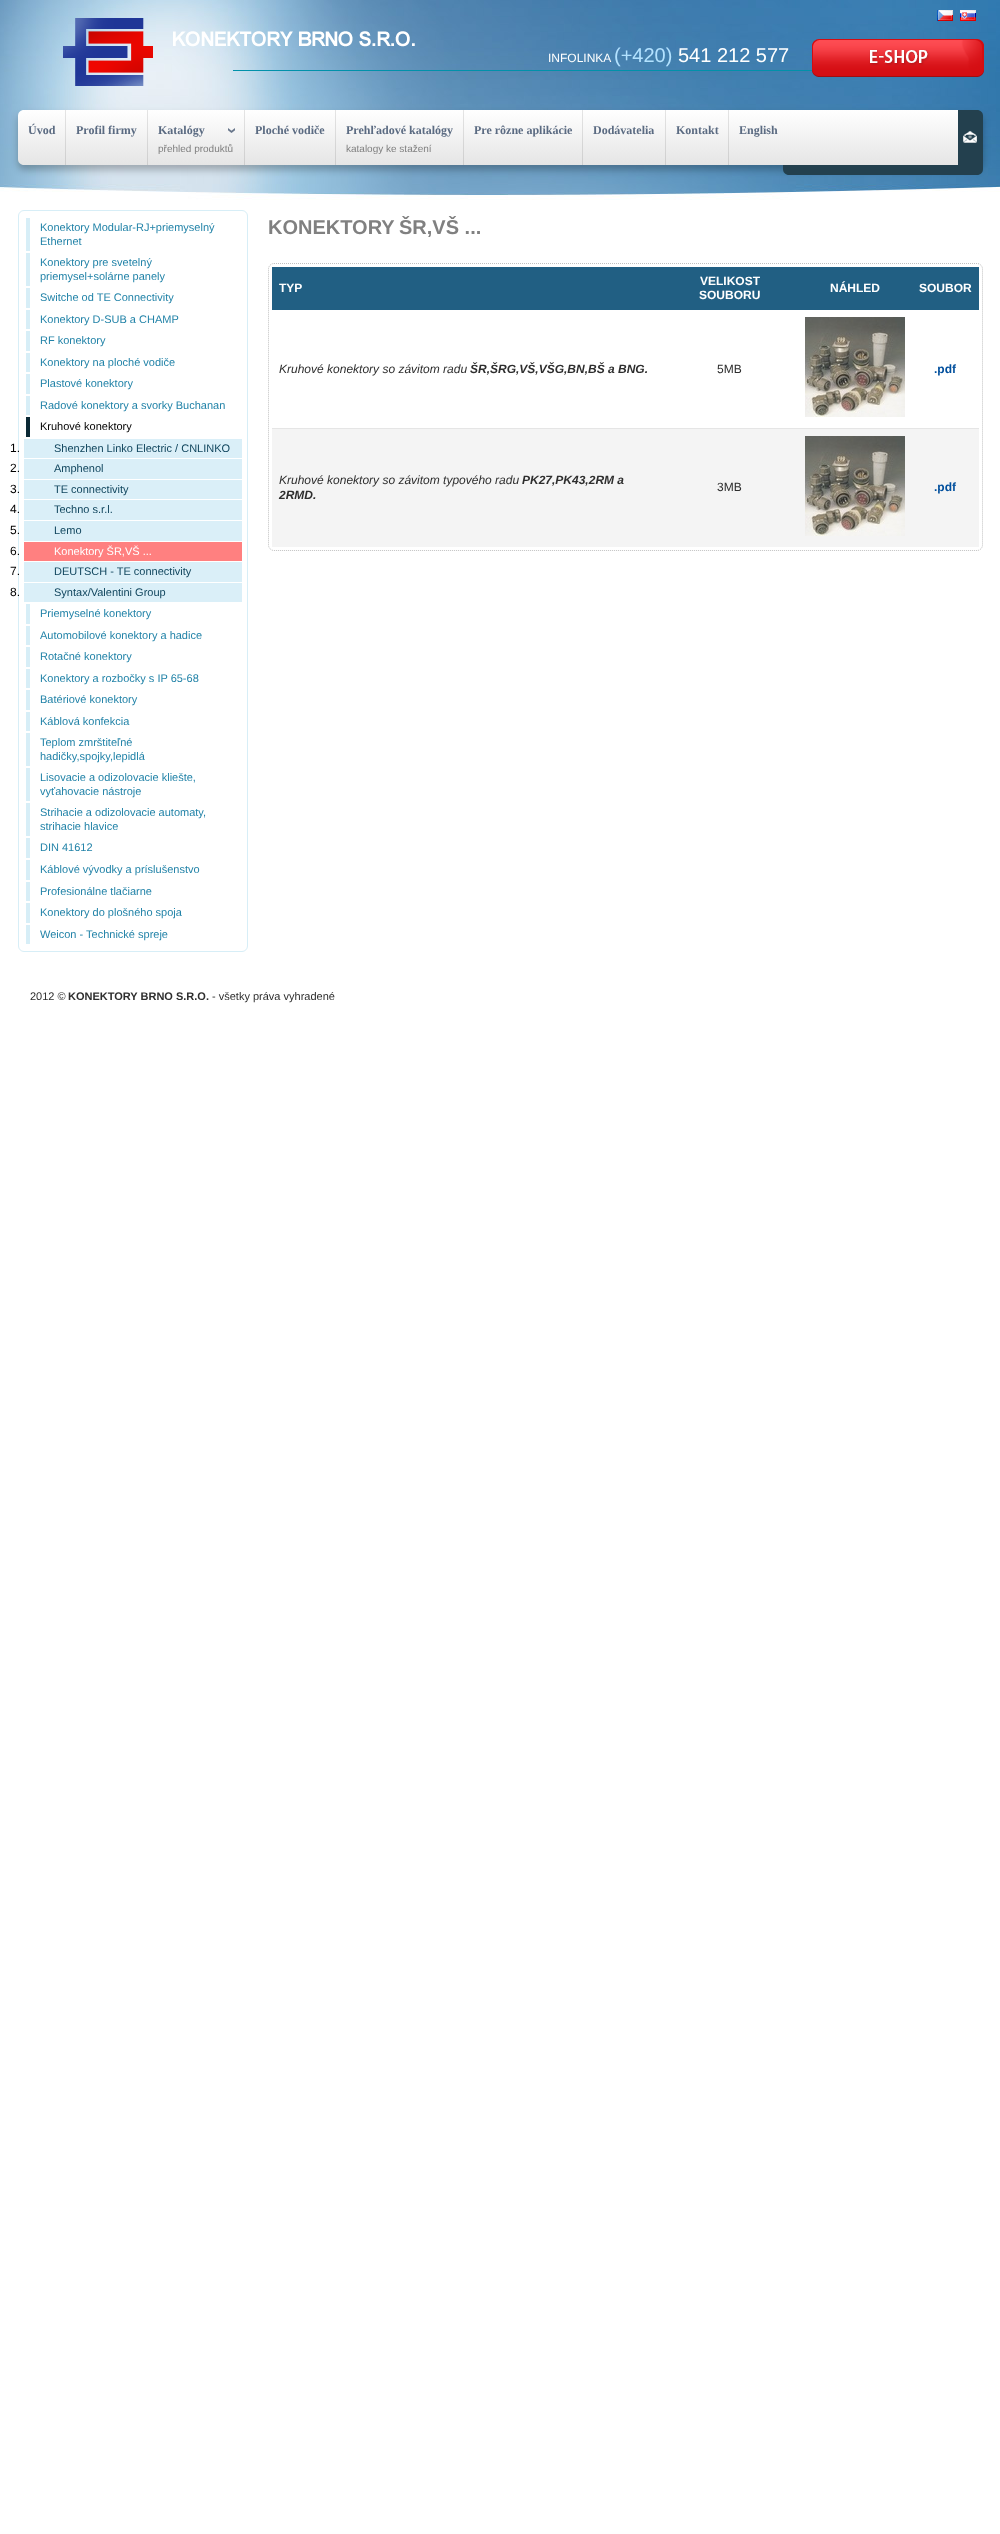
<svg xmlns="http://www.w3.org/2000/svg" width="1000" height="2534">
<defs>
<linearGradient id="g1" gradientUnits="userSpaceOnUse" x1="488" y1="110" x2="488" y2="165"><stop offset="0" stop-color="#fff"/><stop offset="1" stop-color="#e5e5e5"/></linearGradient>
</defs>
<rect width="100%" height="100%" fill="#fff"/>
<image x="0" y="0" width="1000" height="200" href="media/1.png"/>
<image x="937" y="10" width="16" height="11" href="media/2.png"/>
<image x="960" y="10" width="16" height="11" href="media/3.png"/>
<rect x="233" y="70" width="580" height="1" fill="#0091aa"/>
<image x="63" y="18" width="352" height="68" href="media/4.png"/>
<text x="548" y="62" style="font-family:Liberation Sans;font-size:12px;fill:#fff">INFOLINKA</text>
<text x="614" y="62" style="font-family:Liberation Sans;font-size:20px;fill:#b3e2ff">(+420)</text>
<text x="678" y="62" style="font-family:Liberation Sans;font-size:20px;fill:#fff">541 212 577</text>
<image x="812" y="39" width="172" height="38" href="media/5.png"/>
<rect x="18" y="115" width="965" height="55" rx="6" fill="#00000040" filter="blur(3.5px)"/>
<path d="M24 110h934v55h-934c-3.5 0-6-2.5-6-6v-43c0-3.5 2.5-6 6-6z" fill="url(#g1)"/>
<rect x="65" y="110" width="1" height="55" fill="#0000001a"/>
<text x="28" y="134" style="font-family:Liberation Serif;font-size:12px;font-weight:bold;fill:#5b6b82">Úvod</text>
<rect x="147" y="110" width="1" height="55" fill="#0000001a"/>
<text x="76" y="134" style="font-family:Liberation Serif;font-size:12px;font-weight:bold;fill:#5b6b82">Profil firmy</text>
<rect x="244" y="110" width="1" height="55" fill="#0000001a"/>
<text x="158" y="134" style="font-family:Liberation Serif;font-size:12px;font-weight:bold;fill:#5b6b82">Katalógy</text>
<image x="228" y="128" width="7" height="5" href="media/6.png"/>
<text x="158" y="152" style="font-family:Liberation Sans;font-size:10px;fill:#808080">přehled produktů</text>
<rect x="335" y="110" width="1" height="55" fill="#0000001a"/>
<text x="255" y="134" style="font-family:Liberation Serif;font-size:12px;font-weight:bold;fill:#5b6b82">Ploché vodiče</text>
<rect x="463" y="110" width="1" height="55" fill="#0000001a"/>
<text x="346" y="134" style="font-family:Liberation Serif;font-size:12px;font-weight:bold;fill:#5b6b82">Prehľadové katalógy</text>
<text x="346" y="152" style="font-family:Liberation Sans;font-size:10px;fill:#808080">katalogy ke stažení</text>
<rect x="582" y="110" width="1" height="55" fill="#0000001a"/>
<text x="474" y="134" style="font-family:Liberation Serif;font-size:12px;font-weight:bold;fill:#5b6b82">Pre rôzne aplikácie</text>
<rect x="665" y="110" width="1" height="55" fill="#0000001a"/>
<text x="593" y="134" style="font-family:Liberation Serif;font-size:12px;font-weight:bold;fill:#5b6b82">Dodávatelia</text>
<rect x="728" y="110" width="1" height="55" fill="#0000001a"/>
<text x="676" y="134" style="font-family:Liberation Serif;font-size:12px;font-weight:bold;fill:#5b6b82">Kontakt</text>
<text x="739" y="134" style="font-family:Liberation Serif;font-size:12px;font-weight:bold;fill:#5b6b82">English</text>
<path d="M958 110h19c3.5 0 6 2.5 6 6v49h-25z" fill="#23404e"/>
<image x="963" y="131" width="14" height="12" href="media/7.png"/>
<path d="M783 165h200v4c0 3.5-2.5 6-6 6h-188c-3.5 0-6-2.5-6-6z" fill="#23404e"/>
<rect x="18.5" y="210.5" width="229" height="741" rx="5.5" fill="none" stroke="#d7eef7"/>
<rect x="26" y="218" width="4" height="33" fill="#d7eef7"/>
<text x="40" y="231" style="font-family:Liberation Sans;font-size:11px;fill:#2283a8">Konektory Modular-RJ+priemyselný</text>
<text x="40" y="245" style="font-family:Liberation Sans;font-size:11px;fill:#2283a8">Ethernet</text>
<rect x="26" y="253" width="4" height="33" fill="#d7eef7"/>
<text x="40" y="266" style="font-family:Liberation Sans;font-size:11px;fill:#2283a8">Konektory pre svetelný</text>
<text x="40" y="280" style="font-family:Liberation Sans;font-size:11px;fill:#2283a8">priemysel+solárne panely</text>
<rect x="26" y="288" width="4" height="20" fill="#d7eef7"/>
<text x="40" y="301" style="font-family:Liberation Sans;font-size:11px;fill:#2283a8">Switche od TE Connectivity</text>
<rect x="26" y="310" width="4" height="19" fill="#d7eef7"/>
<text x="40" y="323" style="font-family:Liberation Sans;font-size:11px;fill:#2283a8">Konektory D-SUB a CHAMP</text>
<rect x="26" y="331" width="4" height="20" fill="#d7eef7"/>
<text x="40" y="344" style="font-family:Liberation Sans;font-size:11px;fill:#2283a8">RF konektory</text>
<rect x="26" y="353" width="4" height="19" fill="#d7eef7"/>
<text x="40" y="366" style="font-family:Liberation Sans;font-size:11px;fill:#2283a8">Konektory na ploché vodiče</text>
<rect x="26" y="374" width="4" height="20" fill="#d7eef7"/>
<text x="40" y="387" style="font-family:Liberation Sans;font-size:11px;fill:#2283a8">Plastové konektory</text>
<rect x="26" y="396" width="4" height="19" fill="#d7eef7"/>
<text x="40" y="409" style="font-family:Liberation Sans;font-size:11px;fill:#2283a8">Radové konektory a svorky Buchanan</text>
<rect x="26" y="417" width="4" height="20" fill="#0b2935"/>
<text x="40" y="430" style="font-family:Liberation Sans;font-size:11px;fill:#000">Kruhové konektory</text>
<text x="10" y="452" style="font-family:Liberation Sans;font-size:12px;fill:#000">1.</text>
<rect x="24" y="439" width="218" height="19" fill="#daeff8"/>
<text x="54" y="452" style="font-family:Liberation Sans;font-size:11px;fill:#11465e">Shenzhen Linko Electric / CNLINKO</text>
<text x="10" y="472" style="font-family:Liberation Sans;font-size:12px;fill:#000">2.</text>
<rect x="24" y="459" width="218" height="20" fill="#daeff8"/>
<text x="54" y="472" style="font-family:Liberation Sans;font-size:11px;fill:#11465e">Amphenol</text>
<text x="10" y="493" style="font-family:Liberation Sans;font-size:12px;fill:#000">3.</text>
<rect x="24" y="480" width="218" height="19" fill="#daeff8"/>
<text x="54" y="493" style="font-family:Liberation Sans;font-size:11px;fill:#11465e">TE connectivity</text>
<text x="10" y="513" style="font-family:Liberation Sans;font-size:12px;fill:#000">4.</text>
<rect x="24" y="500" width="218" height="20" fill="#daeff8"/>
<text x="54" y="513" style="font-family:Liberation Sans;font-size:11px;fill:#11465e">Techno s.r.l.</text>
<text x="10" y="534" style="font-family:Liberation Sans;font-size:12px;fill:#000">5.</text>
<rect x="24" y="521" width="218" height="20" fill="#daeff8"/>
<text x="54" y="534" style="font-family:Liberation Sans;font-size:11px;fill:#11465e">Lemo</text>
<text x="10" y="555" style="font-family:Liberation Sans;font-size:12px;fill:#000">6.</text>
<rect x="24" y="542" width="218" height="19" fill="#ff8080"/>
<text x="54" y="555" style="font-family:Liberation Sans;font-size:11px;fill:#fff">Konektory ŠR,VŠ ...</text>
<text x="10" y="575" style="font-family:Liberation Sans;font-size:12px;fill:#000">7.</text>
<rect x="24" y="562" width="218" height="20" fill="#daeff8"/>
<text x="54" y="575" style="font-family:Liberation Sans;font-size:11px;fill:#11465e">DEUTSCH - TE connectivity</text>
<text x="10" y="596" style="font-family:Liberation Sans;font-size:12px;fill:#000">8.</text>
<rect x="24" y="583" width="218" height="19" fill="#daeff8"/>
<text x="54" y="596" style="font-family:Liberation Sans;font-size:11px;fill:#11465e">Syntax/Valentini Group</text>
<rect x="26" y="604" width="4" height="20" fill="#d7eef7"/>
<text x="40" y="617" style="font-family:Liberation Sans;font-size:11px;fill:#2283a8">Priemyselné konektory</text>
<rect x="26" y="626" width="4" height="19" fill="#d7eef7"/>
<text x="40" y="639" style="font-family:Liberation Sans;font-size:11px;fill:#2283a8">Automobilové konektory a hadice</text>
<rect x="26" y="647" width="4" height="20" fill="#d7eef7"/>
<text x="40" y="660" style="font-family:Liberation Sans;font-size:11px;fill:#2283a8">Rotačné konektory</text>
<rect x="26" y="669" width="4" height="19" fill="#d7eef7"/>
<text x="40" y="682" style="font-family:Liberation Sans;font-size:11px;fill:#2283a8">Konektory a rozbočky s IP 65-68</text>
<rect x="26" y="690" width="4" height="20" fill="#d7eef7"/>
<text x="40" y="703" style="font-family:Liberation Sans;font-size:11px;fill:#2283a8">Batériové konektory</text>
<rect x="26" y="712" width="4" height="19" fill="#d7eef7"/>
<text x="40" y="725" style="font-family:Liberation Sans;font-size:11px;fill:#2283a8">Káblová konfekcia</text>
<rect x="26" y="733" width="4" height="33" fill="#d7eef7"/>
<text x="40" y="746" style="font-family:Liberation Sans;font-size:11px;fill:#2283a8">Teplom zmrštiteľné</text>
<text x="40" y="760" style="font-family:Liberation Sans;font-size:11px;fill:#2283a8">hadičky,spojky,lepidlá</text>
<rect x="26" y="768" width="4" height="33" fill="#d7eef7"/>
<text x="40" y="781" style="font-family:Liberation Sans;font-size:11px;fill:#2283a8">Lisovacie a odizolovacie kliešte,</text>
<text x="40" y="795" style="font-family:Liberation Sans;font-size:11px;fill:#2283a8">vyťahovacie nástroje</text>
<rect x="26" y="803" width="4" height="33" fill="#d7eef7"/>
<text x="40" y="816" style="font-family:Liberation Sans;font-size:11px;fill:#2283a8">Strihacie a odizolovacie automaty,</text>
<text x="40" y="830" style="font-family:Liberation Sans;font-size:11px;fill:#2283a8">strihacie hlavice</text>
<rect x="26" y="838" width="4" height="20" fill="#d7eef7"/>
<text x="40" y="851" style="font-family:Liberation Sans;font-size:11px;fill:#2283a8">DIN 41612</text>
<rect x="26" y="860" width="4" height="20" fill="#d7eef7"/>
<text x="40" y="873" style="font-family:Liberation Sans;font-size:11px;fill:#2283a8">Káblové vývodky a príslušenstvo</text>
<rect x="26" y="882" width="4" height="19" fill="#d7eef7"/>
<text x="40" y="895" style="font-family:Liberation Sans;font-size:11px;fill:#2283a8">Profesionálne tlačiarne</text>
<rect x="26" y="903" width="4" height="20" fill="#d7eef7"/>
<text x="40" y="916" style="font-family:Liberation Sans;font-size:11px;fill:#2283a8">Konektory do plošného spoja</text>
<rect x="26" y="925" width="4" height="19" fill="#d7eef7"/>
<text x="40" y="938" style="font-family:Liberation Sans;font-size:11px;fill:#2283a8">Weicon - Technické spreje</text>
<text x="268" y="234" style="font-family:Liberation Sans;font-size:20px;font-weight:bold;fill:#808080">KONEKTORY</text>
<text x="399" y="234" style="font-family:Liberation Sans;font-size:20px;font-weight:bold;fill:#808080">ŠR,VŠ ...</text>
<path d="M274 263.5h703c3 0 5.5 2.5 5.5 5.5v276c0 3-2.5 5.5-5.5 5.5h-703c-3 0-5.5-2.5-5.5-5.5v-276c0-3 2.5-5.5 5.5-5.5z" fill="none" stroke="#c0c0c0" stroke-dasharray="1 1"/>
<rect x="272" y="267" width="707" height="43" fill="#215f83"/>
<text x="279" y="292" style="font-family:Liberation Sans;font-size:12px;font-weight:bold;fill:#fff">TYP</text>
<text x="700" y="285" style="font-family:Liberation Sans;font-size:12px;font-weight:bold;fill:#fff">VELIKOST</text>
<text x="699" y="299" style="font-family:Liberation Sans;font-size:12px;font-weight:bold;fill:#fff">SOUBORU</text>
<text x="830" y="292" style="font-family:Liberation Sans;font-size:12px;font-weight:bold;fill:#fff">NÁHLED</text>
<text x="919" y="292" style="font-family:Liberation Sans;font-size:12px;font-weight:bold;fill:#fff">SOUBOR</text>
<rect x="272" y="428" width="707" height="1" fill="#e5e5e5"/>
<text x="279" y="373" style="font-family:Liberation Sans;font-size:12px;font-style:italic;fill:#2e2e2e">Kruhové konektory so závitom radu</text>
<text x="470" y="373" style="font-family:Liberation Sans;font-size:12px;font-weight:bold;font-style:italic;fill:#2e2e2e">ŠR,ŠRG,VŠ,VŠG,BN,BŠ a BNG.</text>
<text x="717" y="373" style="font-family:Liberation Sans;font-size:12px;fill:#2e2e2e">5MB</text>
<image x="805" y="317" width="100" height="100" href="media/8.png"/>
<text x="934" y="373" style="font-family:Liberation Sans;font-size:12px;font-weight:bold;fill:#004f9d">.pdf</text>
<rect x="272" y="429" width="707" height="118" fill="#f4f4f4"/>
<text x="279" y="484" style="font-family:Liberation Sans;font-size:12px;font-style:italic;fill:#2e2e2e">Kruhové konektory so závitom typového radu</text>
<text x="522" y="484" style="font-family:Liberation Sans;font-size:12px;font-weight:bold;font-style:italic;fill:#2e2e2e">PK27,PK43,2RM a</text>
<text x="279" y="499" style="font-family:Liberation Sans;font-size:12px;font-weight:bold;font-style:italic;fill:#2e2e2e">2RMD.</text>
<text x="717" y="491" style="font-family:Liberation Sans;font-size:12px;fill:#2e2e2e">3MB</text>
<image x="805" y="436" width="100" height="100" href="media/8.png"/>
<text x="934" y="491" style="font-family:Liberation Sans;font-size:12px;font-weight:bold;fill:#004f9d">.pdf</text>
<text x="30" y="1000" style="font-family:Liberation Sans;font-size:11px;fill:#2e2e2e">2012 ©</text>
<text x="68" y="1000" style="font-family:Liberation Sans;font-size:11px;font-weight:bold;fill:#2e2e2e">KONEKTORY BRNO S.R.O.</text>
<text x="212" y="1000" style="font-family:Liberation Sans;font-size:11px;fill:#2e2e2e">- všetky práva vyhradené</text>
</svg>
